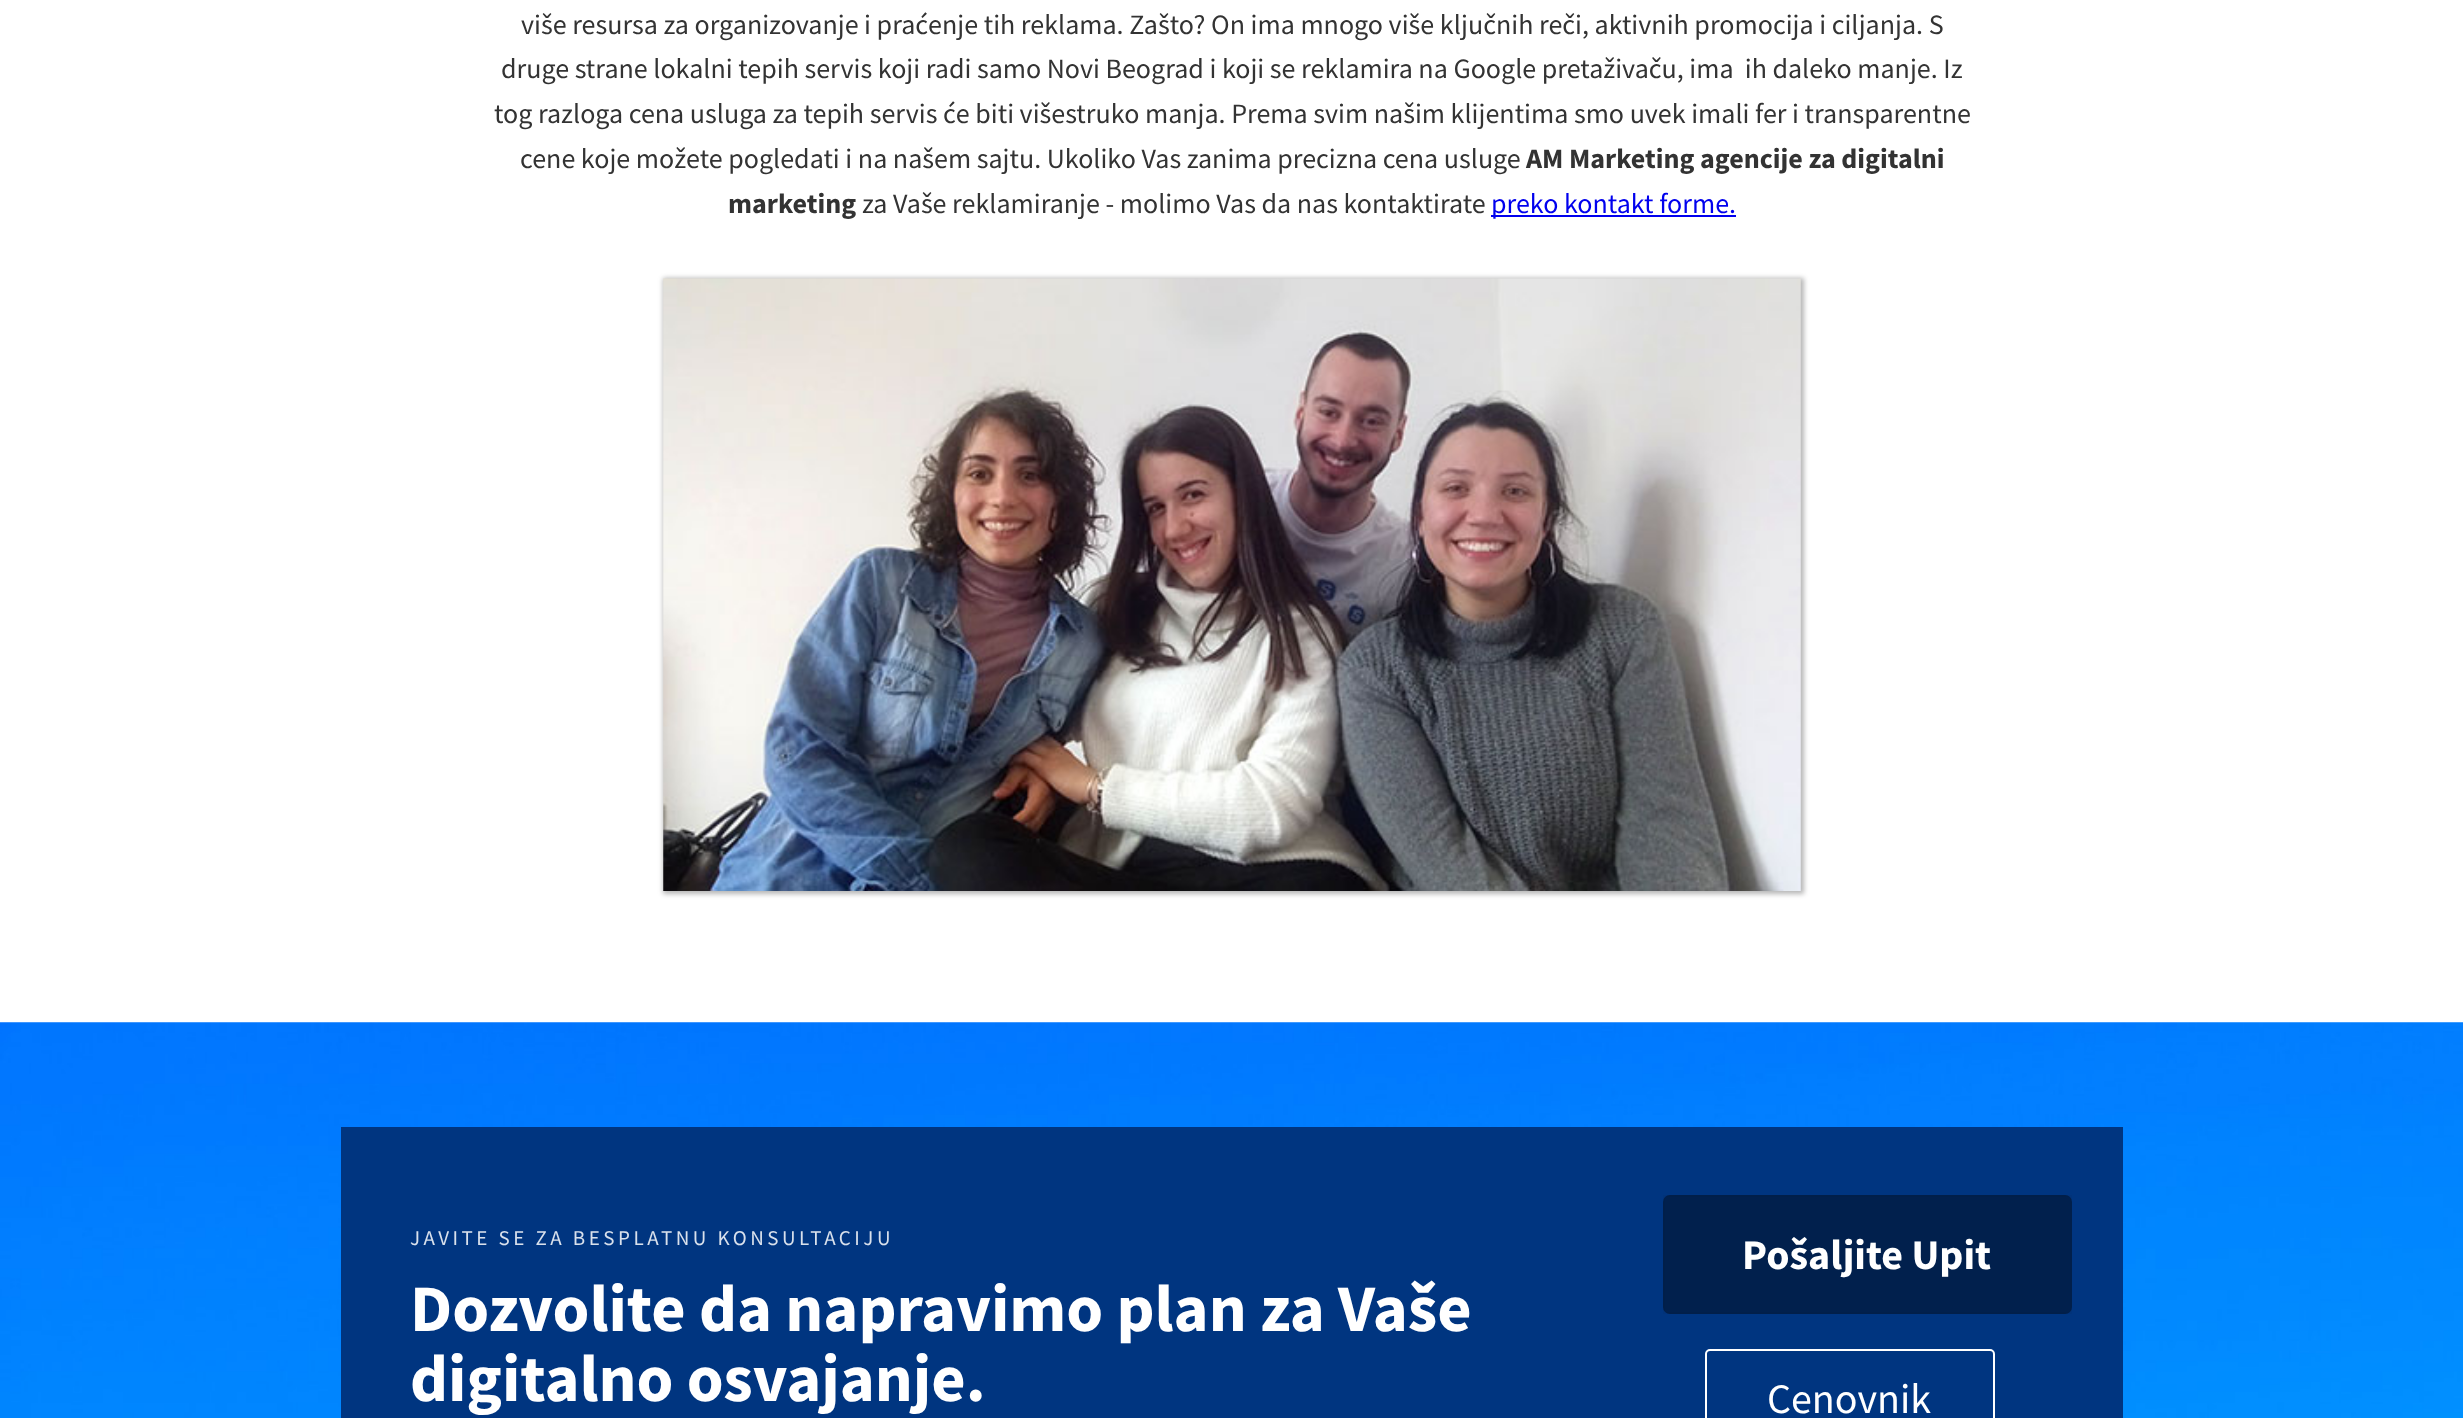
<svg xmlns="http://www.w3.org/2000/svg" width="2463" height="1418">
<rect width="100%" height="100%" fill="#fff"/>
<text x="521" y="34" style="font-family:Source Sans Pro;font-size:28px;fill:#333">više resursa za organizovanje i praćenje tih reklama. Zašto? On ima mnogo više ključnih reči, aktivnih promocija i ciljanja. S</text>
<text x="501" y="78" style="font-family:Source Sans Pro;font-size:28px;fill:#333" xml:space="preserve">druge strane lokalni tepih servis koji radi samo Novi Beograd i koji se reklamira na Google pretaživaču, ima  ih daleko manje. Iz</text>
<text x="494" y="123" style="font-family:Source Sans Pro;font-size:28px;fill:#333">tog razloga cena usluga za tepih servis će biti višestruko manja. Prema svim našim klijentima smo uvek imali fer i transparentne</text>
<text x="520" y="168" style="font-family:Source Sans Pro;font-size:28px;fill:#333">cene koje možete pogledati i na našem sajtu. Ukoliko Vas zanima precizna cena usluge</text>
<text x="1526" y="168" style="font-family:Source Sans Pro;font-size:28px;font-weight:bold;fill:#333">AM Marketing agencije za digitalni</text>
<text x="728" y="213" style="font-family:Source Sans Pro;font-size:28px;font-weight:bold;fill:#333">marketing</text>
<text x="862" y="213" style="font-family:Source Sans Pro;font-size:28px;fill:#333">za Vaše reklamiranje - molimo Vas da nas kontaktirate</text>
<rect x="1491" y="215" width="245" height="2" fill="#00e"/>
<text x="1491" y="213" style="font-family:Source Sans Pro;font-size:28px;fill:#00e">preko kontakt forme.</text>
<rect x="663" y="278" width="1141" height="616" fill="#0000004a" filter="blur(2.5px)"/>
<image x="663" y="278" width="1138" height="613" href="media/1.png"/>
<image x="0" y="1022" width="2463" height="396" href="media/2.png"/>
<rect x="341" y="1127" width="1782" height="291" fill="#003580"/>
<text x="410" y="1245" style="font-family:Source Sans Pro;font-size:21px;letter-spacing:3.5px;fill:#d9e1ec">JAVITE SE ZA BESPLATNU KONSULTACIJU</text>
<text x="410" y="1331" style="font-family:Source Sans Pro;font-size:66.5px;font-weight:bold;fill:#fff">Dozvolite da napravimo plan za Vaše</text>
<text x="410" y="1401" style="font-family:Source Sans Pro;font-size:66.5px;font-weight:bold;fill:#fff">digitalno osvajanje.</text>
<rect x="1663" y="1195" width="409" height="119" rx="7" fill="#01204d"/>
<rect x="1664" y="1196" width="407" height="117" fill="none" stroke="#1112120d" stroke-width="2"/>
<text x="1742" y="1269" style="font-family:Source Sans Pro;font-size:42px;font-weight:bold;fill:#fff">Pošaljite Upit</text>
<rect x="1706" y="1350" width="288" height="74" rx="4" fill="none" stroke="#fff" stroke-width="2"/>
<text x="1767" y="1413" style="font-family:Source Sans Pro;font-size:42px;fill:#fff">Cenovnik</text>
</svg>
